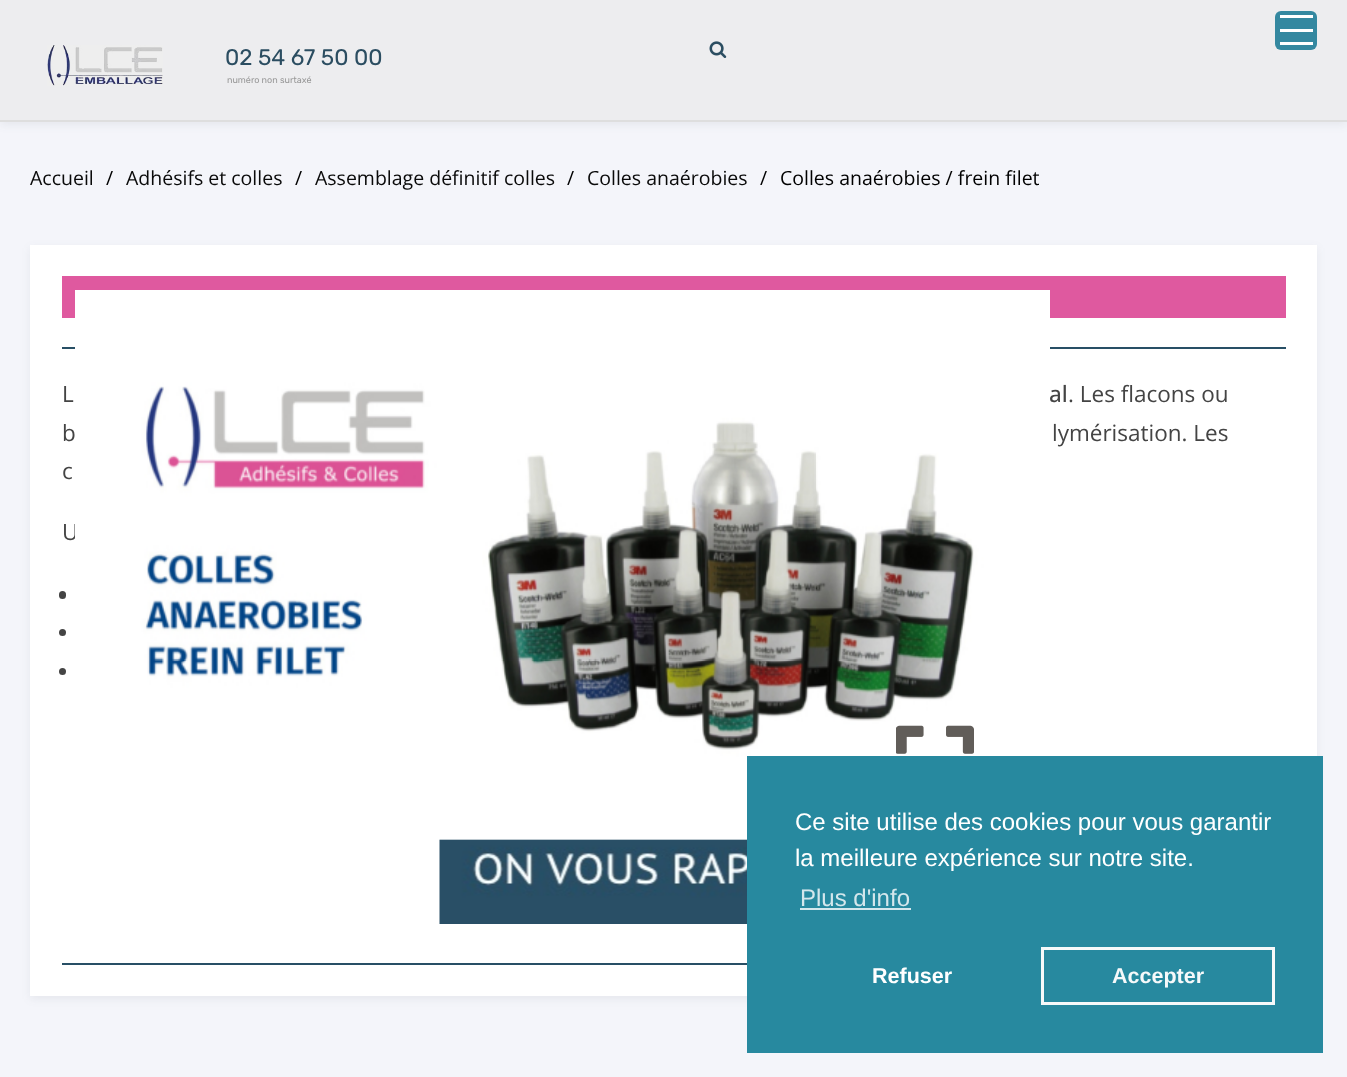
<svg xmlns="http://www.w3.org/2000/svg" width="1347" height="1077">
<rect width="100%" height="100%" fill="#f4f5fa"/>
<rect y="3" width="1347" height="122" fill="#45495b14" filter="blur(4.5px)"/>
<rect width="1347" height="120" fill="#ededef"/>
<rect y="120" width="1347" height="2" fill="#dedede"/>
<image x="47" y="45" width="116" height="41" href="media/1.png"/>
<text x="225" y="65" style="font-family:Rubik;font-size:22.5px;fill:#2b4d61">02 54 67 50 00</text>
<text x="227" y="83" style="font-family:Rubik;font-size:9px;fill:#989898">numéro non surtaxé</text>
<image x="709" y="41" width="18" height="17" href="media/2.png"/>
<rect x="1275" y="11" width="42" height="39" rx="6" fill="#3488a0"/>
<rect x="1280" y="15" width="33" height="3" fill="#fff"/>
<rect x="1280" y="29" width="33" height="3" fill="#fff"/>
<rect x="1280" y="42" width="33" height="3" fill="#fff"/>
<text x="30" y="185" style="font-family:Open Sans;font-size:19.5px;fill:#0a0a0a">Accueil</text>
<text x="106" y="185" style="font-family:Open Sans;font-size:19.5px;fill:#000">/</text>
<text x="126" y="185" style="font-family:Open Sans;font-size:19.5px;fill:#0a0a0a">Adhésifs et colles</text>
<text x="295" y="185" style="font-family:Open Sans;font-size:19.5px;fill:#000">/</text>
<text x="315" y="185" style="font-family:Open Sans;font-size:19.5px;fill:#0a0a0a">Assemblage définitif colles</text>
<text x="567" y="185" style="font-family:Open Sans;font-size:19.5px;fill:#000">/</text>
<text x="587" y="185" style="font-family:Open Sans;font-size:19.5px;fill:#0a0a0a">Colles anaérobies</text>
<text x="760" y="185" style="font-family:Open Sans;font-size:19.5px;fill:#000">/</text>
<text x="780" y="185" style="font-family:Open Sans;font-size:19.5px;fill:#000">Colles anaérobies / frein filet</text>
<rect x="30" y="248" width="1287" height="751" fill="#45495b14" filter="blur(4.5px)"/>
<rect x="30" y="245" width="1287" height="751" fill="#fff"/>
<rect x="62" y="276" width="1224" height="42" fill="#df599f"/>
<rect x="62" y="347" width="1224" height="2" fill="#284f65"/>
<text x="62" y="540" style="font-family:Open Sans;font-size:22.5px;fill:#444">U</text>
<image x="439" y="839" width="308" height="85" href="media/5.png"/>
<image x="75" y="290" width="975" height="550" href="media/3.png"/>
<image x="896" y="725" width="78" height="29" href="media/4.png"/>
<rect x="62" y="963" width="685" height="2" fill="#284f65"/>
<text x="62" y="402" style="font-family:Open Sans;font-size:22.5px;fill:#444">L</text>
<text x="1049" y="402" style="font-family:Open Sans;font-size:22.5px;font-weight:500;fill:#444">al</text>
<text x="1068" y="402" style="font-family:Open Sans;font-size:22.5px;fill:#444">. Les flacons ou</text>
<text x="62" y="441" style="font-family:Open Sans;font-size:22.5px;fill:#444">b</text>
<text x="1052" y="441" style="font-family:Open Sans;font-size:22.5px;fill:#444">lymérisation. Les</text>
<text x="62" y="479" style="font-family:Open Sans;font-size:22.5px;fill:#444">c</text>
<rect x="59" y="591" width="7" height="8" rx="3.5" fill="#444"/>
<circle cx="62.5" cy="632.5" r="3.5" fill="#444"/>
<circle cx="62.5" cy="671.5" r="3.5" fill="#444"/>
<rect x="747" y="756" width="576" height="297" fill="#27899f"/>
<text x="795" y="830" style="font-family:Liberation Sans;font-size:24px;fill:#fff">Ce site utilise des cookies pour vous garantir</text>
<text x="795" y="866" style="font-family:Liberation Sans;font-size:24px;fill:#fff">la meilleure expérience sur notre site.</text>
<text x="800" y="906" style="font-family:Liberation Sans;font-size:24px;fill:#d4e7ec">Plus d'info</text>
<rect x="800" y="908" width="111" height="2" fill="#d4e7ec"/>
<text x="872" y="983" style="font-family:Liberation Sans;font-size:21.5px;font-weight:bold;fill:#fff">Refuser</text>
<rect x="1042.5" y="948.5" width="231" height="55" fill="none" stroke="#f6f9fa" stroke-width="3"/>
<text x="1112" y="983" style="font-family:Liberation Sans;font-size:21.5px;font-weight:bold;fill:#f6f9fa">Accepter</text>
</svg>
